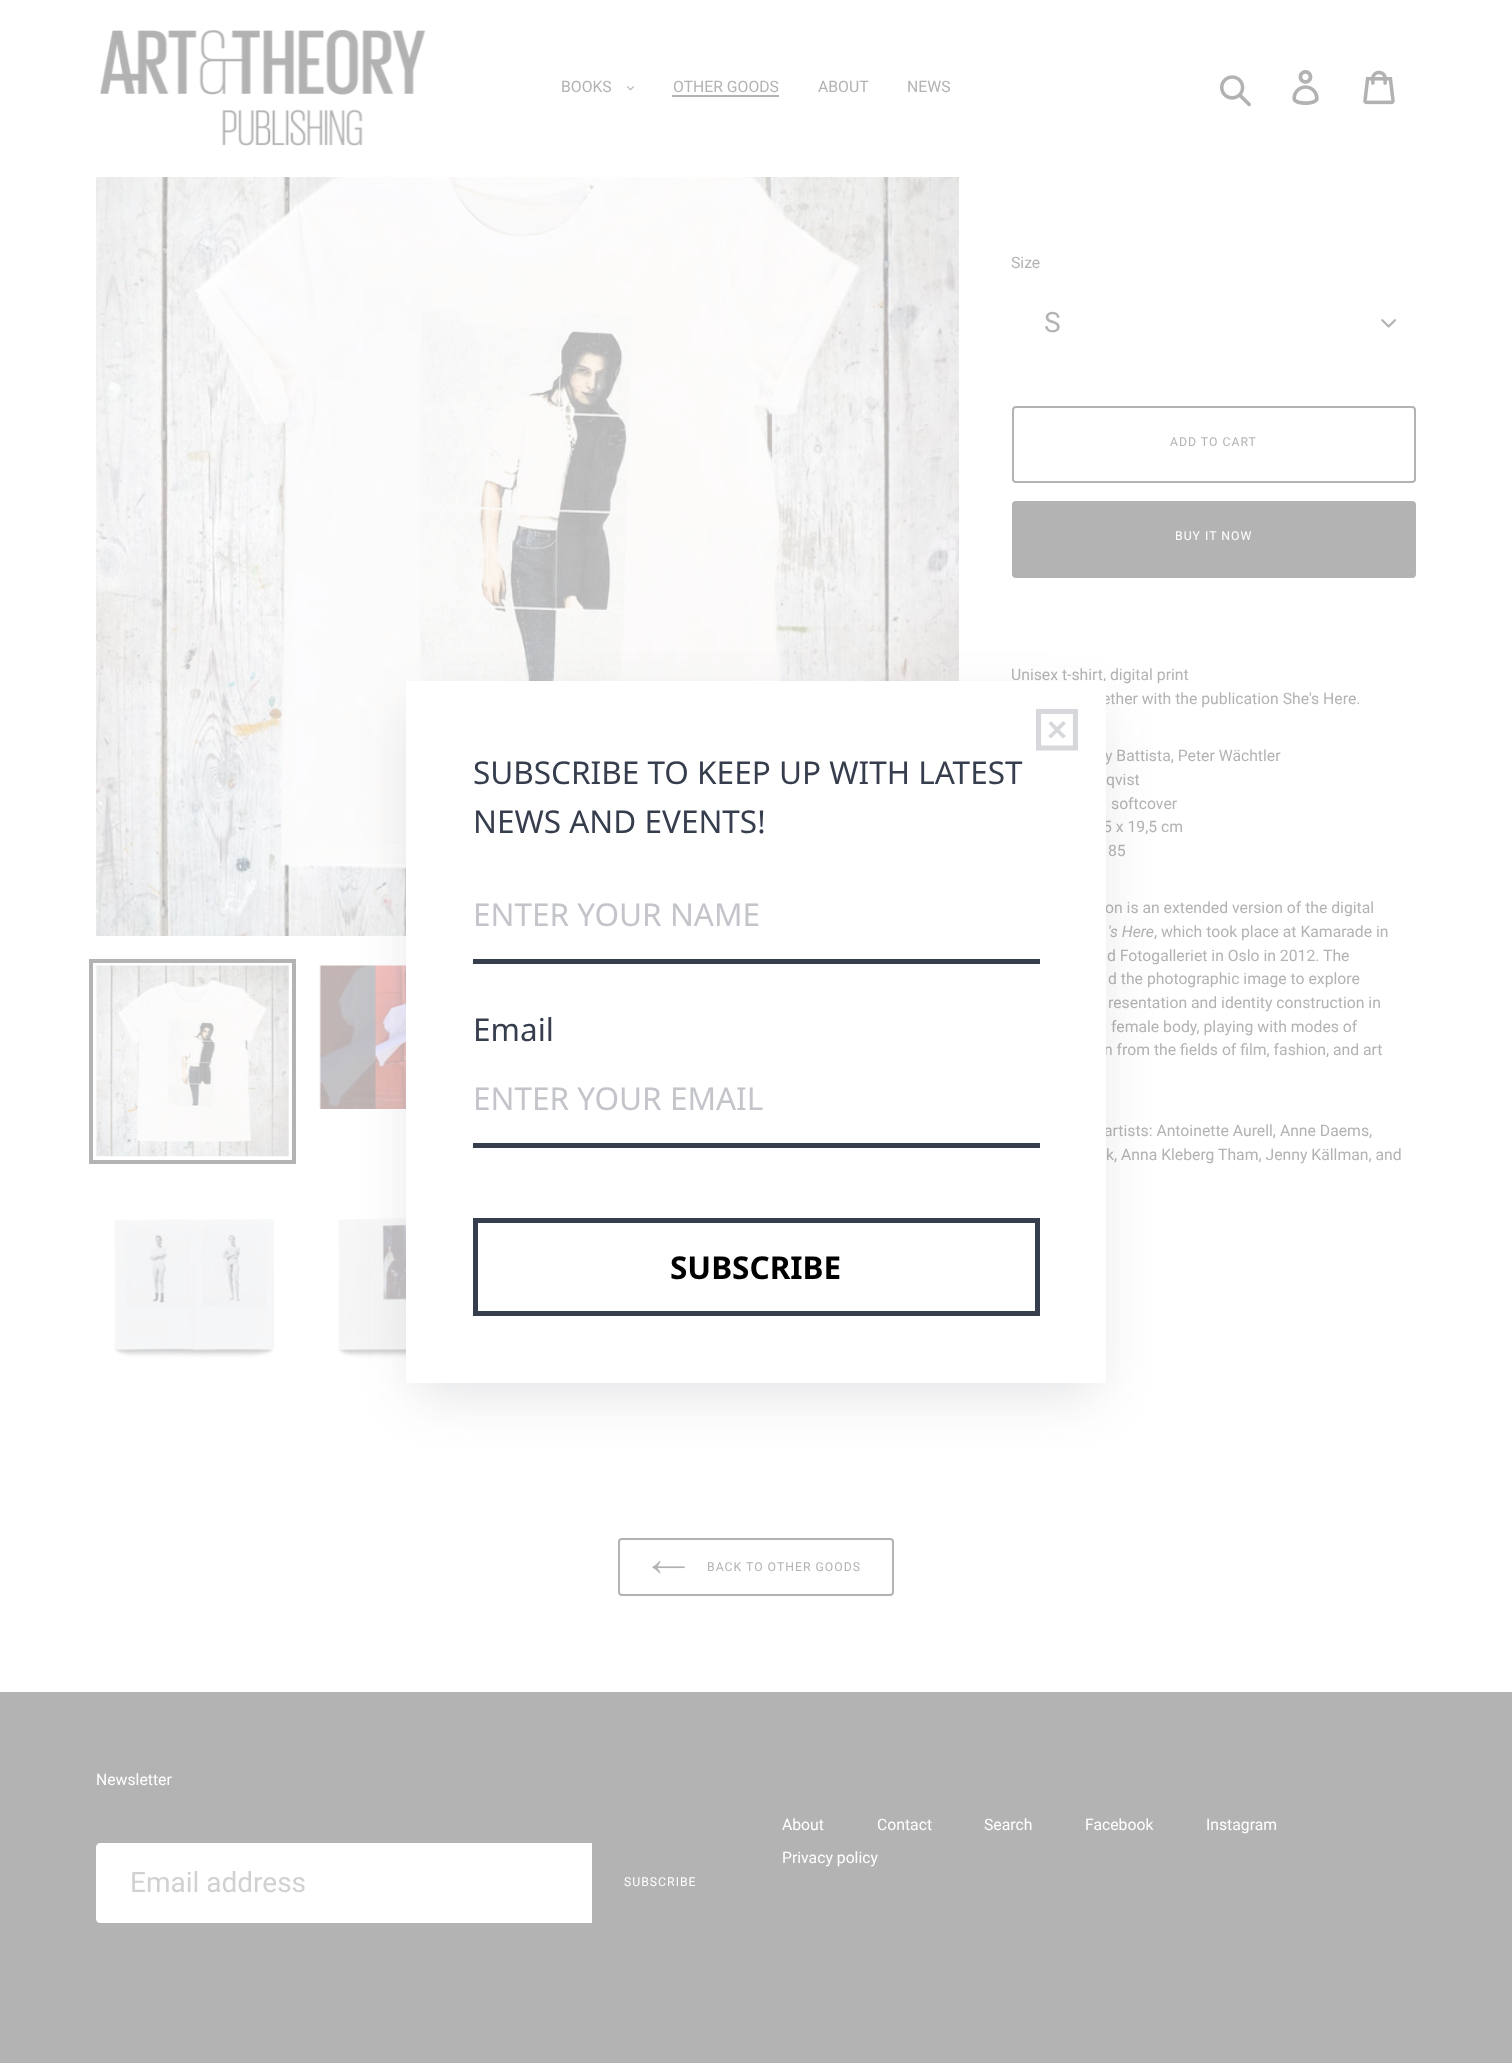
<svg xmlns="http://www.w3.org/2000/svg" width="1512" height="2063">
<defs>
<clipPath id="clip1"><rect x="1036" y="709" width="42" height="42"/></clipPath>
</defs>
<rect width="100%" height="100%" fill="#fff"/>
<image x="100" y="30" width="326" height="116" href="media/1.png"/>
<text x="561" y="92" style="font-family:Roboto;font-size:15.75px;fill:#b3b3b3">BOOKS</text>
<image x="627" y="86" width="7" height="5" href="media/2.png"/>
<text x="673" y="92" style="font-family:Roboto;font-size:15.75px;fill:#b3b3b3">OTHER GOODS</text>
<rect x="672" y="95" width="107" height="2" fill="#b3b3b3"/>
<text x="818" y="92" style="font-family:Roboto;font-size:15.75px;fill:#b3b3b3">ABOUT</text>
<text x="907" y="92" style="font-family:Roboto;font-size:15.75px;fill:#b3b3b3">NEWS</text>
<image x="1220" y="75" width="31" height="32" href="media/3.png"/>
<image x="1292" y="70" width="27" height="35" href="media/4.png"/>
<image x="1363" y="70" width="32" height="35" href="media/5.png"/>
<image x="96" y="177" width="863" height="759" href="media/6.png"/>
<rect x="91" y="961" width="203" height="201" fill="none" stroke="#b3b3b3" stroke-width="4"/>
<image x="95" y="965" width="194" height="192" href="media/7.png"/>
<image x="319" y="965" width="87" height="144" href="media/8.png"/>
<image x="114" y="1218" width="161" height="140" href="media/9.png"/>
<image x="338" y="1218" width="68" height="141" href="media/10.png"/>
<text x="1011" y="268" style="font-family:Roboto;font-size:15.75px;fill:#b3b3b3">Size</text>
<image x="1381" y="319" width="15" height="9" href="media/11.png"/>
<text x="1044" y="332" style="font-family:Roboto;font-size:28px;fill:#b3b3b3">S</text>
<rect x="1013" y="407" width="402" height="75" rx="3" fill="none" stroke="#b3b3b3" stroke-width="2"/>
<text x="1170" y="446" style="font-family:Roboto;font-size:12.25px;letter-spacing:1px;fill:#b3b3b3">ADD TO CART</text>
<rect x="1012" y="501" width="404" height="77" rx="4" fill="#b3b3b3"/>
<text x="1175" y="540" style="font-family:Roboto;font-size:12.25px;letter-spacing:1px;fill:#fff">BUY IT NOW</text>
<text x="1011" y="680" style="font-family:Roboto;font-size:15.75px;fill:#b3b3b3">Unisex t-shirt, digital print</text>
<text x="1102" y="704" style="font-family:Roboto;font-size:15.75px;fill:#b3b3b3">ether with the publication She's Here.</text>
<text x="1105" y="761" style="font-family:Roboto;font-size:15.75px;fill:#b3b3b3">y Battista, Peter Wächtler</text>
<text x="1106" y="785" style="font-family:Roboto;font-size:15.75px;fill:#b3b3b3">qvist</text>
<text x="1111" y="809" style="font-family:Roboto;font-size:15.75px;fill:#b3b3b3">softcover</text>
<text x="1103" y="832" style="font-family:Roboto;font-size:15.75px;fill:#b3b3b3">5 x 19,5 cm</text>
<text x="1108" y="856" style="font-family:Roboto;font-size:15.75px;fill:#b3b3b3">85</text>
<text x="1105" y="913" style="font-family:Roboto;font-size:15.75px;fill:#b3b3b3">on is an extended version of the digital</text>
<text x="1108" y="937" style="font-family:Roboto;font-size:15.75px;font-style:italic;fill:#b3b3b3">'s Here</text>
<text x="1154" y="937" style="font-family:Roboto;font-size:15.75px;fill:#b3b3b3">, which took place at Kamarade in</text>
<text x="1107" y="961" style="font-family:Roboto;font-size:15.75px;fill:#b3b3b3">d Fotogalleriet in Oslo in 2012. The</text>
<text x="1108" y="984" style="font-family:Roboto;font-size:15.75px;fill:#b3b3b3">d the photographic image to explore</text>
<text x="1108" y="1008" style="font-family:Roboto;font-size:15.75px;fill:#b3b3b3">resentation and identity construction in</text>
<text x="1111" y="1032" style="font-family:Roboto;font-size:15.75px;fill:#b3b3b3">female body, playing with modes of</text>
<text x="1104" y="1055" style="font-family:Roboto;font-size:15.75px;fill:#b3b3b3">n from the fields of film, fashion, and art</text>
<text x="1104" y="1136" style="font-family:Roboto;font-size:15.75px;fill:#b3b3b3">artists: Antoinette Aurell, Anne Daems,</text>
<text x="1106" y="1160" style="font-family:Roboto;font-size:15.75px;fill:#b3b3b3">k, Anna Kleberg Tham, Jenny Källman, and</text>
<rect x="619" y="1539" width="274" height="56" rx="3" fill="none" stroke="#b3b3b3" stroke-width="2"/>
<image x="652" y="1561" width="33" height="13" href="media/12.png"/>
<text x="707" y="1571" style="font-family:Roboto;font-size:12.25px;letter-spacing:1px;fill:#b3b3b3">BACK TO OTHER GOODS</text>
<rect y="1692" width="1512" height="371" fill="#b3b3b3"/>
<text x="96" y="1785" style="font-family:Roboto;font-size:15.75px;fill:#fff">Newsletter</text>
<path d="M100 1843h492v80h-492c-2 0-4-2-4-4v-72c0-2 2-4 4-4z" fill="#fff"/>
<text x="130" y="1892" style="font-family:Roboto;font-size:28px;fill:#d1d1d1">Email address</text>
<text x="624" y="1886" style="font-family:Roboto;font-size:12.25px;letter-spacing:1px;fill:#fff">SUBSCRIBE</text>
<text x="782" y="1830" style="font-family:Roboto;font-size:15.75px;fill:#fff">About</text>
<text x="877" y="1830" style="font-family:Roboto;font-size:15.75px;fill:#fff">Contact</text>
<text x="984" y="1830" style="font-family:Roboto;font-size:15.75px;fill:#fff">Search</text>
<text x="1085" y="1830" style="font-family:Roboto;font-size:15.75px;fill:#fff">Facebook</text>
<text x="1206" y="1830" style="font-family:Roboto;font-size:15.75px;fill:#fff">Instagram</text>
<text x="782" y="1863" style="font-family:Roboto;font-size:15.75px;fill:#fff">Privacy policy</text>
<rect x="415" y="709" width="682" height="684" fill="#363d4d26" filter="blur(28px)"/>
<rect x="406" y="681" width="700" height="702" fill="#fff"/>
<g clip-path="url(#clip1)">
<path d="M1075.5 711.5v36.5h-37v-36.5z" fill="none" stroke="#d7d8db" stroke-width="5.2"/>
</g>
<path d="M1066 723.5l-3-2.5l-6 6l-6-6l-2.5 2.5l6 6.5l-6.5 6l3 2.5l6-6l6 6l3-2.5l-6.5-6z" fill="#d7d8db"/>
<text x="473" y="784" style="font-family:Noto Sans;font-size:31.5px;fill:#363d4d">SUBSCRIBE TO KEEP UP WITH LATEST</text>
<text x="473" y="833" style="font-family:Noto Sans;font-size:31.5px;fill:#363d4d">NEWS AND EVENTS!</text>
<rect x="473" y="959" width="567" height="5" fill="#363d4d"/>
<text x="473" y="926" style="font-family:Noto Sans;font-size:31.5px;fill:#c3c5ca">ENTER YOUR NAME</text>
<text x="473" y="1041" style="font-family:Noto Sans;font-size:31.5px;fill:#363d4d">Email</text>
<rect x="473" y="1143" width="567" height="5" fill="#363d4d"/>
<text x="473" y="1110" style="font-family:Noto Sans;font-size:31.5px;fill:#c3c5ca">ENTER YOUR EMAIL</text>
<rect x="475.5" y="1220.5" width="562" height="93" fill="none" stroke="#363d4d" stroke-width="5"/>
<text x="670" y="1279" style="font-family:Noto Sans;font-size:31.5px;font-weight:bold;fill:#000">SUBSCRIBE</text>
</svg>
